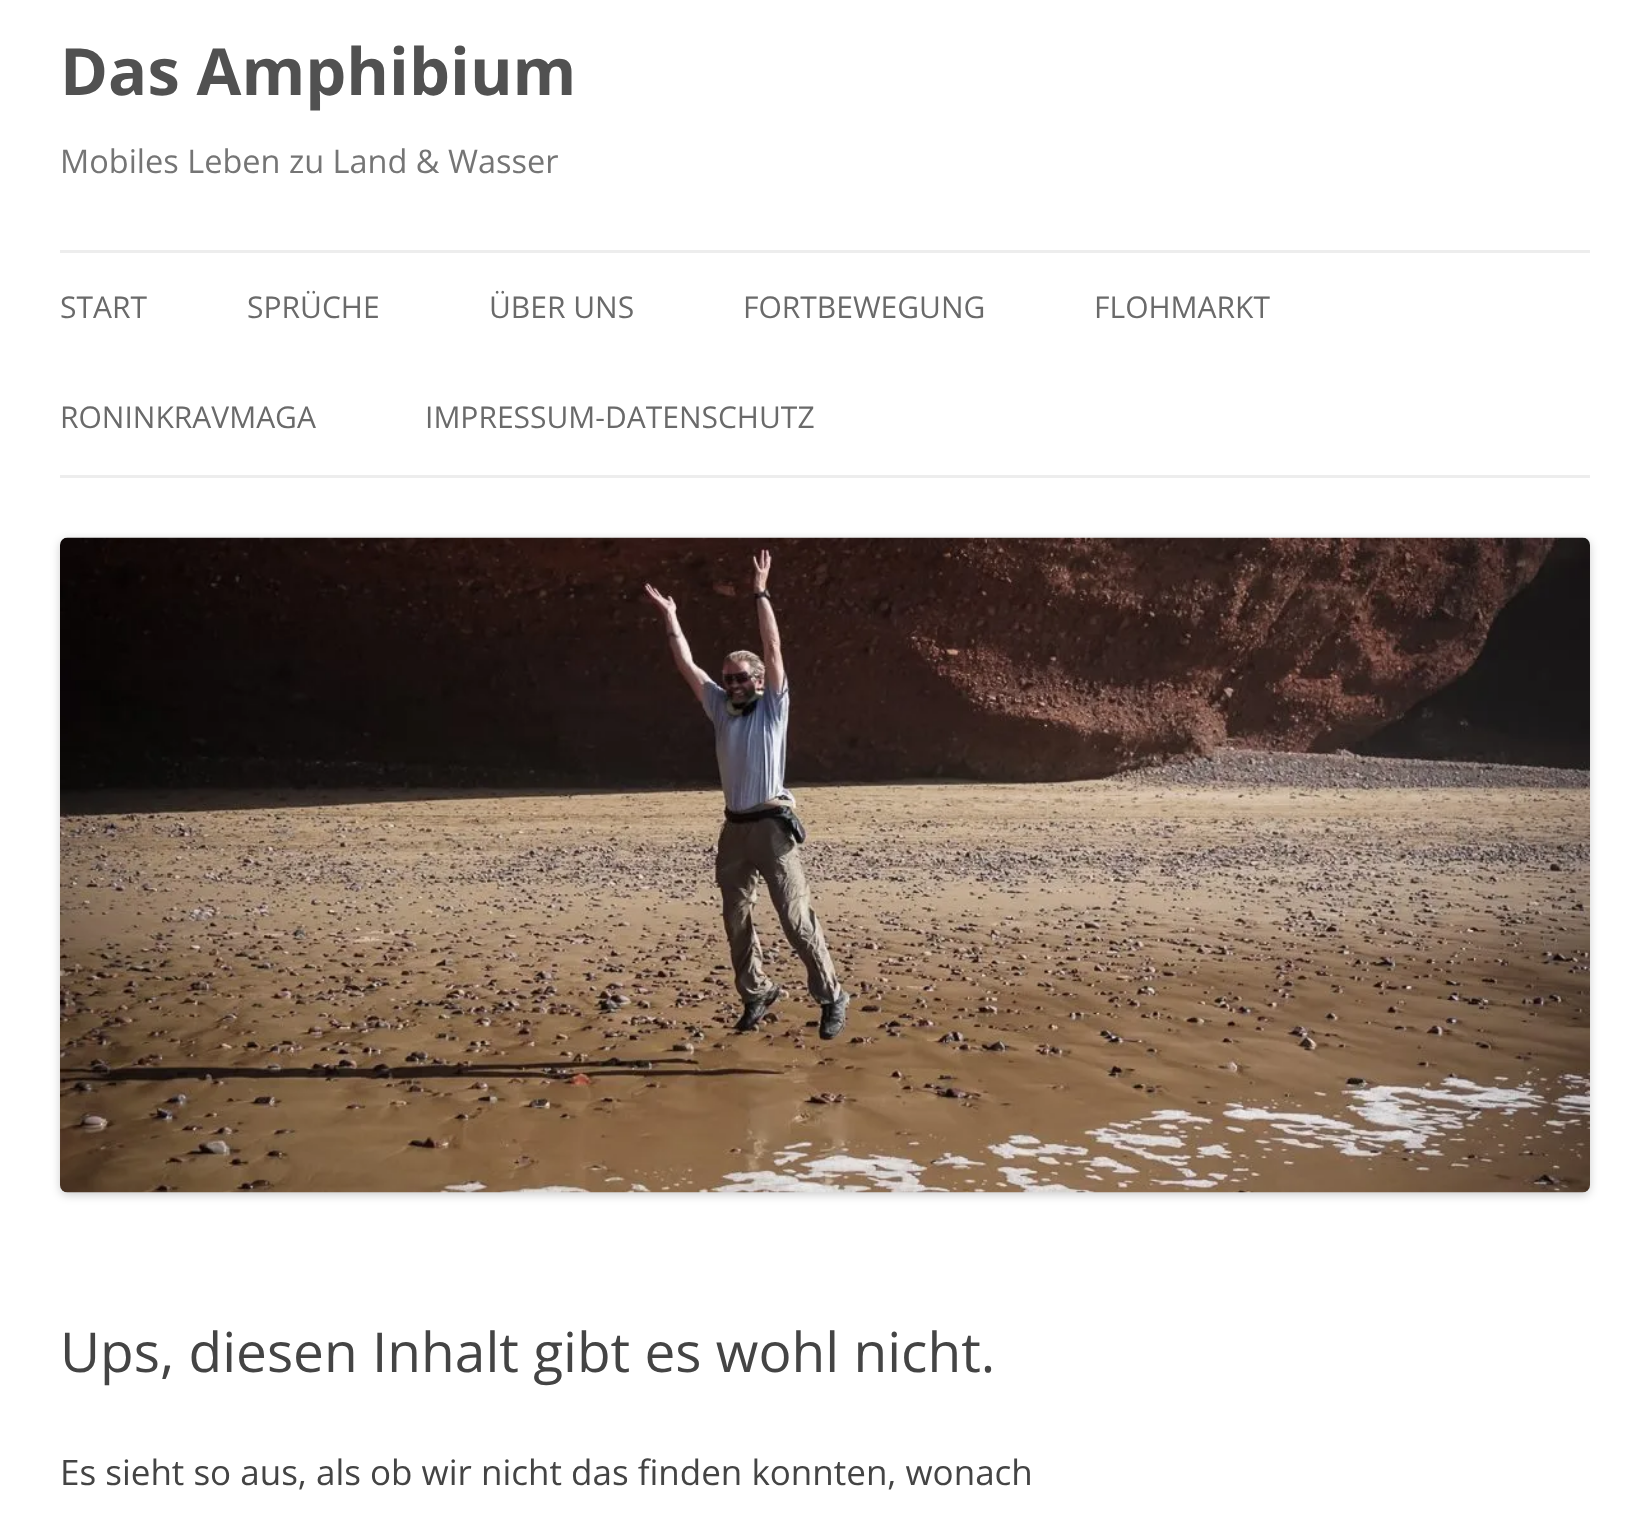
<svg xmlns="http://www.w3.org/2000/svg" width="1649" height="1535">
<rect width="100%" height="100%" fill="#fff"/>
<text x="60" y="95" style="font-family:Open Sans;font-size:65px;font-weight:bold;fill:#515151">Das Amphibium</text>
<text x="60" y="173" style="font-family:Open Sans;font-size:32.5px;fill:#757575">Mobiles Leben zu Land &amp; Wasser</text>
<rect x="60" y="250" width="1530" height="3" fill="#ededed"/>
<rect x="60" y="475" width="1530" height="3" fill="#ededed"/>
<text x="60" y="318" style="font-family:Open Sans;font-size:30px;fill:#6a6a6a">START</text>
<text x="247" y="318" style="font-family:Open Sans;font-size:30px;fill:#6a6a6a">SPRÜCHE</text>
<text x="489" y="318" style="font-family:Open Sans;font-size:30px;fill:#6a6a6a">ÜBER UNS</text>
<text x="743" y="318" style="font-family:Open Sans;font-size:30px;fill:#6a6a6a">FORTBEWEGUNG</text>
<text x="1094" y="318" style="font-family:Open Sans;font-size:30px;fill:#6a6a6a">FLOHMARKT</text>
<text x="60" y="428" style="font-family:Open Sans;font-size:30px;fill:#6a6a6a">RONINKRAVMAGA</text>
<text x="425" y="428" style="font-family:Open Sans;font-size:30px;fill:#6a6a6a">IMPRESSUM-DATENSCHUTZ</text>
<rect x="60" y="540" width="1530" height="655" rx="8" fill="#00000033" filter="blur(5px)"/>
<image x="60" y="537" width="1530" height="656" href="media/1.png"/>
<text x="60" y="1372" style="font-family:Open Sans;font-size:55px;fill:#444">Ups, diesen Inhalt gibt es wohl nicht.</text>
<text x="60" y="1485" style="font-family:Open Sans;font-size:35px;fill:#444">Es sieht so aus, als ob wir nicht das finden konnten, wonach</text>
</svg>
